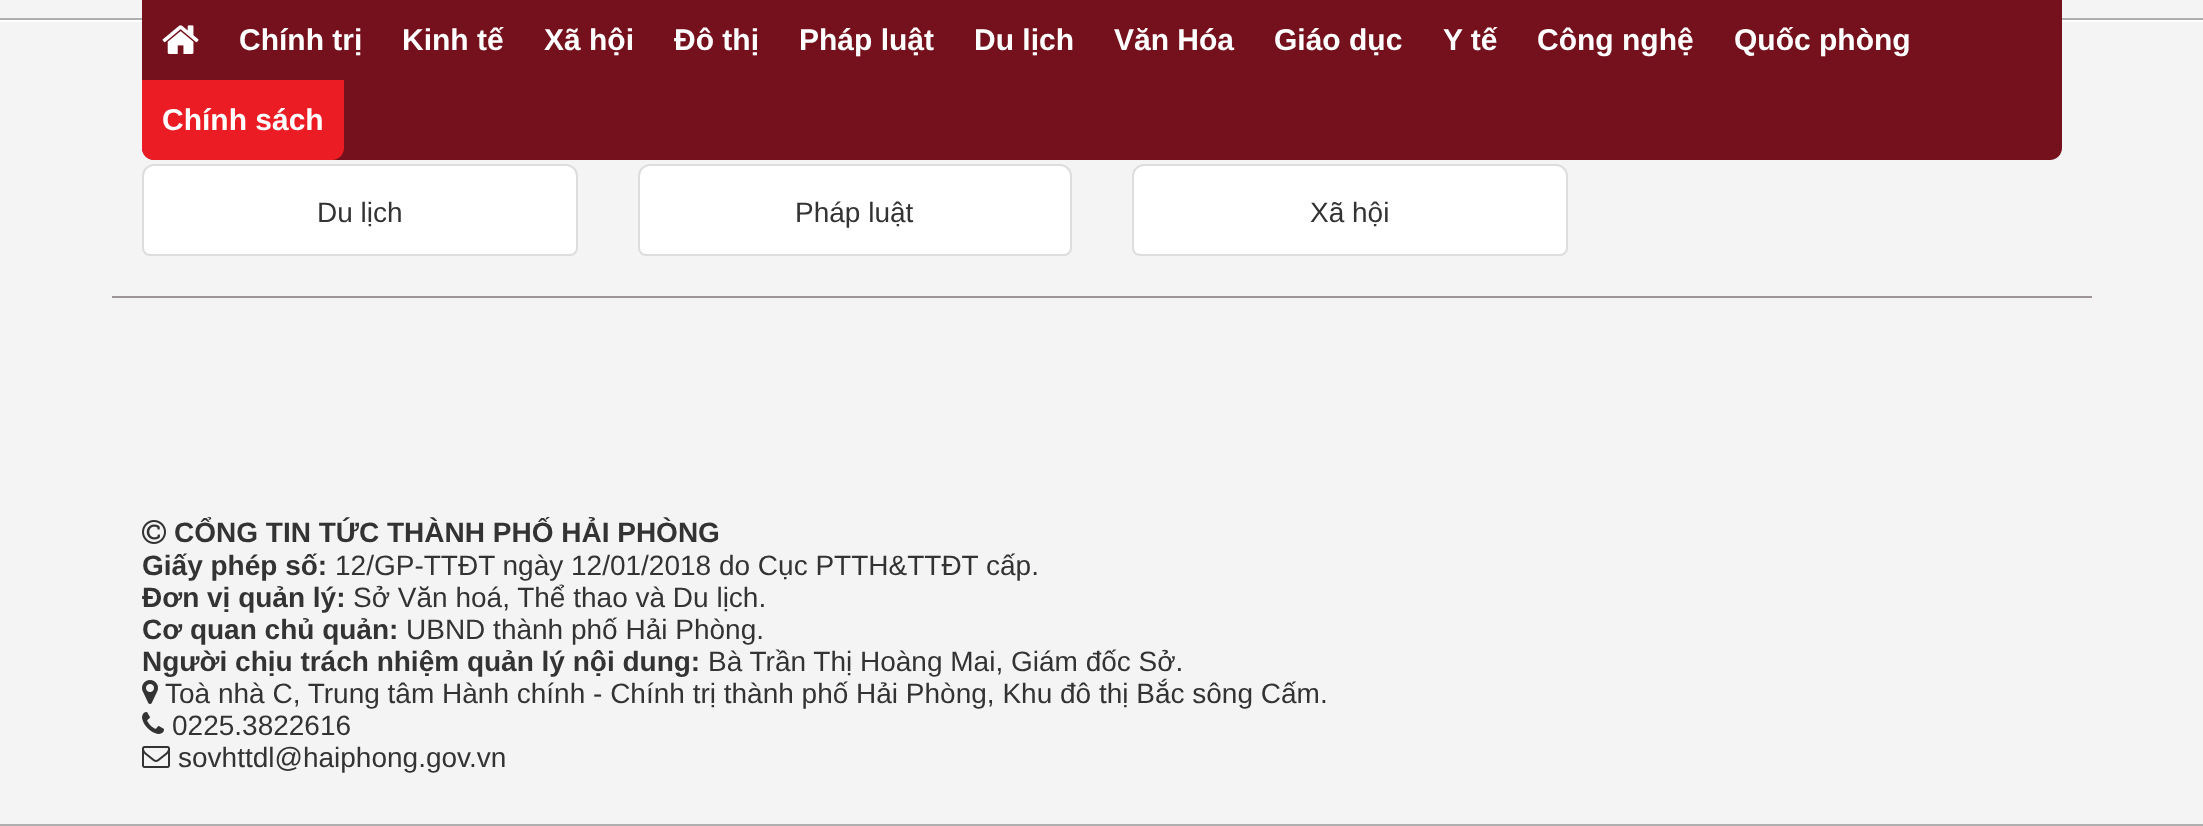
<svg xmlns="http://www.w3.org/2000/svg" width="2203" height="826">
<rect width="100%" height="100%" fill="#f4f4f4"/>
<rect y="18" width="2203" height="2" fill="#afafaf"/>
<rect y="20" width="2203" height="2" fill="#fff"/>
<path d="M142 0h1920v148c0 6.5-5.5 12-12 12h-1896c-6.5 0-12-5.5-12-12z" fill="#74111c"/>
<image x="162" y="25" width="37" height="29" href="media/1.png"/>
<text x="239" y="50" style="font-family:Liberation Sans;font-size:30px;font-weight:bold;fill:#fff">Chính trị</text>
<text x="402" y="50" style="font-family:Liberation Sans;font-size:30px;font-weight:bold;fill:#fff">Kinh tế</text>
<text x="544" y="50" style="font-family:Liberation Sans;font-size:30px;font-weight:bold;fill:#fff">Xã hội</text>
<text x="674" y="50" style="font-family:Liberation Sans;font-size:30px;font-weight:bold;fill:#fff">Đô thị</text>
<text x="799" y="50" style="font-family:Liberation Sans;font-size:30px;font-weight:bold;fill:#fff">Pháp luật</text>
<text x="974" y="50" style="font-family:Liberation Sans;font-size:30px;font-weight:bold;fill:#fff">Du lịch</text>
<text x="1114" y="50" style="font-family:Liberation Sans;font-size:30px;font-weight:bold;fill:#fff">Văn Hóa</text>
<text x="1274" y="50" style="font-family:Liberation Sans;font-size:30px;font-weight:bold;fill:#fff">Giáo dục</text>
<text x="1443" y="50" style="font-family:Liberation Sans;font-size:30px;font-weight:bold;fill:#fff">Y tế</text>
<text x="1537" y="50" style="font-family:Liberation Sans;font-size:30px;font-weight:bold;fill:#fff">Công nghệ</text>
<text x="1734" y="50" style="font-family:Liberation Sans;font-size:30px;font-weight:bold;fill:#fff">Quốc phòng</text>
<path d="M142 80h202v68c0 6.5-5.5 12-12 12h-178c-6.5 0-12-5.5-12-12z" fill="#ec1c24"/>
<text x="162" y="130" style="font-family:Liberation Sans;font-size:30px;font-weight:bold;fill:#fff">Chính sách</text>
<rect y="824" width="2203" height="2" fill="#afafaf"/>
<path d="M154 165h412c6 0 11 5 11 11v72c0 4-3 7-7 7h-420c-4 0-7-3-7-7v-72c0-6 5-11 11-11z" fill="#fff" stroke="#ddd" stroke-width="2"/>
<text x="317" y="222" style="font-family:Liberation Sans;font-size:28px;fill:#333">Du lịch</text>
<path d="M650 165h410c6 0 11 5 11 11v72c0 4-3 7-7 7h-418c-4 0-7-3-7-7v-72c0-6 5-11 11-11z" fill="#fff" stroke="#ddd" stroke-width="2"/>
<text x="795" y="222" style="font-family:Liberation Sans;font-size:28px;fill:#333">Pháp luật</text>
<path d="M1144 165h412c6 0 11 5 11 11v72c0 4-3 7-7 7h-420c-4 0-7-3-7-7v-72c0-6 5-11 11-11z" fill="#fff" stroke="#ddd" stroke-width="2"/>
<text x="1310" y="222" style="font-family:Liberation Sans;font-size:28px;fill:#333">Xã hội</text>
<rect x="112" y="296" width="1980" height="2" fill="#9e9696"/>
<image x="142" y="520" width="24" height="24" href="media/2.png"/>
<text x="174" y="542" style="font-family:Liberation Sans;font-size:28px;font-weight:bold;fill:#333">CỔNG TIN TỨC THÀNH PHỐ HẢI PHÒNG</text>
<text x="142" y="575" style="font-family:Liberation Sans;font-size:28px;font-weight:bold;fill:#333">Giấy phép số:</text>
<text x="335" y="575" style="font-family:Liberation Sans;font-size:28px;fill:#333">12/GP-TTĐT ngày 12/01/2018 do Cục PTTH&amp;TTĐT cấp.</text>
<text x="142" y="607" style="font-family:Liberation Sans;font-size:28px;font-weight:bold;fill:#333">Đơn vị quản lý:</text>
<text x="353" y="607" style="font-family:Liberation Sans;font-size:28px;fill:#333">Sở Văn hoá, Thể thao và Du lịch.</text>
<text x="142" y="639" style="font-family:Liberation Sans;font-size:28px;font-weight:bold;fill:#333">Cơ quan chủ quản:</text>
<text x="406" y="639" style="font-family:Liberation Sans;font-size:28px;fill:#333">UBND thành phố Hải Phòng.</text>
<text x="142" y="671" style="font-family:Liberation Sans;font-size:28px;font-weight:bold;fill:#333">Người chịu trách nhiệm quản lý nội dung:</text>
<text x="708" y="671" style="font-family:Liberation Sans;font-size:28px;fill:#333">Bà Trần Thị Hoàng Mai, Giám đốc Sở.</text>
<image x="142" y="680" width="16" height="24" href="media/3.png"/>
<text x="165" y="703" style="font-family:Liberation Sans;font-size:28px;fill:#333">Toà nhà C, Trung tâm Hành chính - Chính trị thành phố Hải Phòng, Khu đô thị Bắc sông Cấm.</text>
<image x="142" y="712" width="22" height="22" href="media/4.png"/>
<text x="172" y="735" style="font-family:Liberation Sans;font-size:28px;fill:#333">0225.3822616</text>
<image x="142" y="746" width="28" height="22" href="media/5.png"/>
<text x="178" y="767" style="font-family:Liberation Sans;font-size:28px;fill:#333">sovhttdl@haiphong.gov.vn</text>
</svg>
